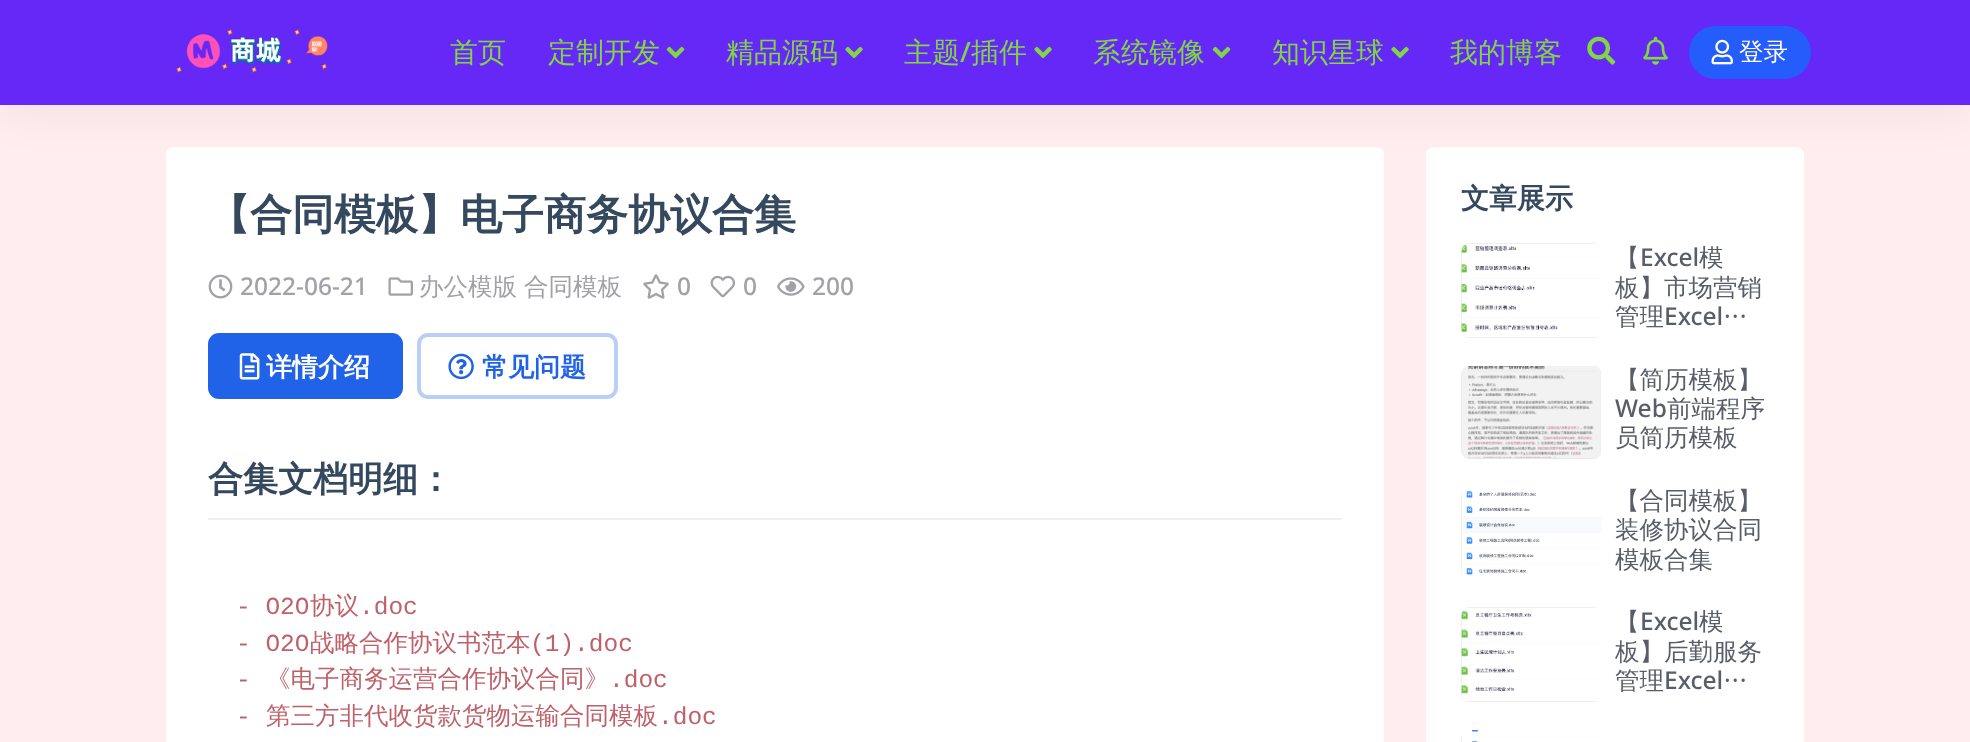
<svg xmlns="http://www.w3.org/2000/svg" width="1970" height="742">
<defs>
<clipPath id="clip1"><rect x="1461" y="243" width="140" height="95" rx="7"/></clipPath>
<clipPath id="clip2"><rect x="1461" y="366" width="140" height="93" rx="7"/></clipPath>
<clipPath id="clip3"><rect x="1461" y="487" width="140" height="92" rx="7"/></clipPath>
<clipPath id="clip4"><rect x="1461" y="607" width="140" height="95" rx="7"/></clipPath>
<clipPath id="clip5"><rect x="1461" y="730" width="140" height="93" rx="7"/></clipPath>
</defs>
<rect width="100%" height="100%" fill="#ffedef"/>
<rect x="166" y="147" width="1218" height="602" rx="7" fill="#fff"/>
<rect x="1426" y="147" width="378" height="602" rx="7" fill="#fff"/>
<rect width="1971" height="105" fill="#00000012" filter="blur(26px)"/>
<rect width="1970" height="105" fill="#6528f7"/>
<image x="176" y="29" width="152" height="44" href="media/1.png"/>
<text x="450" y="62" style="font-family:WenQuanYi Zen Hei;font-size:28px;font-weight:500;fill:#81d742">首页</text>
<text x="548" y="62" style="font-family:WenQuanYi Zen Hei;font-size:28px;font-weight:500;fill:#81d742">定制开发</text>
<image x="666" y="46" width="19" height="13" href="media/2.png"/>
<text x="726" y="62" style="font-family:WenQuanYi Zen Hei;font-size:28px;font-weight:500;fill:#81d742">精品源码</text>
<image x="845" y="46" width="18" height="13" href="media/3.png"/>
<text x="904" y="62" style="font-family:WenQuanYi Zen Hei;font-size:28px;font-weight:500;fill:#81d742">主题</text>
<text x="960" y="62" style="font-family:Noto Sans;font-size:28px;font-weight:500;fill:#81d742">/</text>
<text x="971" y="62" style="font-family:WenQuanYi Zen Hei;font-size:28px;font-weight:500;fill:#81d742">插件</text>
<image x="1034" y="46" width="18" height="13" href="media/3.png"/>
<text x="1093" y="62" style="font-family:WenQuanYi Zen Hei;font-size:28px;font-weight:500;fill:#81d742">系统镜像</text>
<image x="1212" y="46" width="19" height="13" href="media/2.png"/>
<text x="1272" y="62" style="font-family:WenQuanYi Zen Hei;font-size:28px;font-weight:500;fill:#81d742">知识星球</text>
<image x="1391" y="46" width="18" height="13" href="media/3.png"/>
<text x="1450" y="62" style="font-family:WenQuanYi Zen Hei;font-size:28px;font-weight:500;fill:#81d742">我的博客</text>
<image x="1587" y="36" width="29" height="29" href="media/4.png"/>
<image x="1643" y="36" width="25" height="29" href="media/5.png"/>
<rect x="1689" y="26" width="122" height="53" rx="26.5" fill="#255dfc"/>
<image x="1711" y="39" width="22" height="26" href="media/6.png"/>
<text x="1739" y="60" style="font-family:WenQuanYi Zen Hei;font-size:24.5px;font-weight:500;fill:#fff">登录</text>
<text x="208" y="229" style="font-family:WenQuanYi Zen Hei;font-size:42px;font-weight:bold;fill:#34495e">【合同模板】电子商务协议合集</text>
<image x="208" y="274" width="25" height="25" href="media/7.png"/>
<text x="240" y="295" style="font-family:Noto Sans;font-size:24.5px;font-weight:500;fill:#a1a1a8">2022-06-21</text>
<image x="388" y="277" width="25" height="19" href="media/8.png"/>
<text x="419" y="295" style="font-family:WenQuanYi Zen Hei;font-size:24.5px;font-weight:500;fill:#a1a1a8">办公模版</text>
<text x="524" y="295" style="font-family:WenQuanYi Zen Hei;font-size:24.5px;font-weight:500;fill:#a1a1a8">合同模板</text>
<image x="643" y="274" width="26" height="25" href="media/9.png"/>
<text x="677" y="295" style="font-family:Noto Sans;font-size:24.5px;font-weight:500;fill:#a1a1a8">0</text>
<image x="710" y="275" width="25" height="23" href="media/10.png"/>
<text x="743" y="295" style="font-family:Noto Sans;font-size:24.5px;font-weight:500;fill:#a1a1a8">0</text>
<image x="777" y="277" width="28" height="19" href="media/11.png"/>
<text x="812" y="295" style="font-family:Noto Sans;font-size:24.5px;font-weight:500;fill:#a1a1a8">200</text>
<rect x="208" y="333" width="195" height="66" rx="11" fill="#2163e8"/>
<image x="239" y="353" width="21" height="27" href="media/12.png"/>
<text x="266" y="376" style="font-family:WenQuanYi Zen Hei;font-size:26px;font-weight:bold;fill:#fff">详情介绍</text>
<rect x="419" y="335" width="197" height="62" rx="9" fill="none" stroke="#bacff8" stroke-width="4"/>
<image x="448" y="353" width="26" height="27" href="media/13.png"/>
<text x="482" y="376" style="font-family:WenQuanYi Zen Hei;font-size:26px;font-weight:bold;fill:#2163e8">常见问题</text>
<rect x="208" y="518" width="1134" height="2" fill="#efefef"/>
<text x="208" y="491" style="font-family:WenQuanYi Zen Hei;font-size:35px;font-weight:bold;fill:#34495e">合集文档明细：</text>
<text x="236" y="614" style="font-family:Liberation Mono;font-size:24.5px;fill:#bf616a">- O2O</text>
<text x="310" y="614" style="font-family:WenQuanYi Zen Hei;font-size:24.5px;font-weight:500;fill:#bf616a">协议</text>
<text x="359" y="614" style="font-family:Liberation Mono;font-size:24.5px;fill:#bf616a">.doc</text>
<text x="236" y="651" style="font-family:Liberation Mono;font-size:24.5px;fill:#bf616a">- O2O</text>
<text x="310" y="651" style="font-family:WenQuanYi Zen Hei;font-size:24.5px;font-weight:500;fill:#bf616a">战略合作协议书范本</text>
<text x="530" y="651" style="font-family:Liberation Mono;font-size:24.5px;fill:#bf616a">(1).doc</text>
<text x="236" y="687" style="font-family:Liberation Mono;font-size:24.5px;fill:#bf616a">-</text>
<text x="266" y="687" style="font-family:WenQuanYi Zen Hei;font-size:24.5px;font-weight:500;fill:#bf616a">《电子商务运营合作协议合同》</text>
<text x="609" y="687" style="font-family:Liberation Mono;font-size:24.5px;fill:#bf616a">.doc</text>
<text x="236" y="724" style="font-family:Liberation Mono;font-size:24.5px;fill:#bf616a">-</text>
<text x="266" y="724" style="font-family:WenQuanYi Zen Hei;font-size:24.5px;font-weight:500;fill:#bf616a">第三方非代收货款货物运输合同模板</text>
<text x="658" y="724" style="font-family:Liberation Mono;font-size:24.5px;fill:#bf616a">.doc</text>
<text x="1461" y="208" style="font-family:WenQuanYi Zen Hei;font-size:28px;font-weight:bold;fill:#34495e">文章展示</text>
<g clip-path="url(#clip1)">
<path d="M1470 243h124c4 0 7 3 7 7v81c0 4-3 7-7 7h-124c-5 0-9-4-9-9v-77c0-5 4-9 9-9z" fill="#e7e7e7"/>
</g>
<image x="1461" y="243" width="140" height="95" href="media/14.png"/>
<text x="1615" y="266" style="font-family:WenQuanYi Zen Hei;font-size:24.5px;font-weight:500;fill:#595d69">【</text>
<text x="1640" y="266" style="font-family:Noto Sans;font-size:24.5px;font-weight:500;fill:#595d69">Excel</text>
<text x="1699" y="266" style="font-family:WenQuanYi Zen Hei;font-size:24.5px;font-weight:500;fill:#595d69">模</text>
<text x="1615" y="296" style="font-family:WenQuanYi Zen Hei;font-size:24.5px;font-weight:500;fill:#595d69">板】市场营销</text>
<text x="1615" y="325" style="font-family:WenQuanYi Zen Hei;font-size:24.5px;font-weight:500;fill:#595d69">管理</text>
<text x="1664" y="325" style="font-family:Noto Sans;font-size:24.5px;font-weight:500;fill:#595d69">Excel</text>
<text x="1723" y="325" style="font-family:WenQuanYi Zen Hei;font-size:24.5px;font-weight:500;fill:#595d69">…</text>
<g clip-path="url(#clip2)">
<path d="M1470 366h124c4 0 7 3 7 7v79c0 4-3 7-7 7h-124c-5 0-9-4-9-9v-75c0-5 4-9 9-9z" fill="#e7e7e7"/>
</g>
<image x="1461" y="366" width="140" height="93" href="media/15.png"/>
<text x="1615" y="388" style="font-family:WenQuanYi Zen Hei;font-size:24.5px;font-weight:500;fill:#595d69">【简历模板】</text>
<text x="1615" y="417" style="font-family:Noto Sans;font-size:24.5px;font-weight:500;fill:#595d69">Web</text>
<text x="1667" y="417" style="font-family:WenQuanYi Zen Hei;font-size:24.5px;font-weight:500;fill:#595d69">前端程序</text>
<text x="1615" y="446" style="font-family:WenQuanYi Zen Hei;font-size:24.5px;font-weight:500;fill:#595d69">员简历模板</text>
<g clip-path="url(#clip3)">
<path d="M1470 487h124c4 0 7 3 7 7v78c0 4-3 7-7 7h-124c-5 0-9-4-9-9v-74c0-5 4-9 9-9z" fill="#e7e7e7"/>
</g>
<image x="1461" y="487" width="140" height="92" href="media/16.png"/>
<text x="1615" y="509" style="font-family:WenQuanYi Zen Hei;font-size:24.5px;font-weight:500;fill:#595d69">【合同模板】</text>
<text x="1615" y="538" style="font-family:WenQuanYi Zen Hei;font-size:24.5px;font-weight:500;fill:#595d69">装修协议合同</text>
<text x="1615" y="568" style="font-family:WenQuanYi Zen Hei;font-size:24.5px;font-weight:500;fill:#595d69">模板合集</text>
<g clip-path="url(#clip4)">
<path d="M1470 607h124c4 0 7 3 7 7v81c0 4-3 7-7 7h-124c-5 0-9-4-9-9v-77c0-5 4-9 9-9z" fill="#e7e7e7"/>
</g>
<image x="1461" y="607" width="140" height="95" href="media/17.png"/>
<text x="1615" y="630" style="font-family:WenQuanYi Zen Hei;font-size:24.5px;font-weight:500;fill:#595d69">【</text>
<text x="1640" y="630" style="font-family:Noto Sans;font-size:24.5px;font-weight:500;fill:#595d69">Excel</text>
<text x="1699" y="630" style="font-family:WenQuanYi Zen Hei;font-size:24.5px;font-weight:500;fill:#595d69">模</text>
<text x="1615" y="660" style="font-family:WenQuanYi Zen Hei;font-size:24.5px;font-weight:500;fill:#595d69">板】后勤服务</text>
<text x="1615" y="689" style="font-family:WenQuanYi Zen Hei;font-size:24.5px;font-weight:500;fill:#595d69">管理</text>
<text x="1664" y="689" style="font-family:Noto Sans;font-size:24.5px;font-weight:500;fill:#595d69">Excel</text>
<text x="1723" y="689" style="font-family:WenQuanYi Zen Hei;font-size:24.5px;font-weight:500;fill:#595d69">…</text>
<g clip-path="url(#clip5)">
<path d="M1470 730h124c4 0 7 3 7 7v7c0 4-3 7-7 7h-124c-5 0-9-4-9-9v-3c0-5 4-9 9-9z" fill="#e7e7e7"/>
</g>
<image x="1461" y="730" width="140" height="12" href="media/18.png"/>
</svg>
